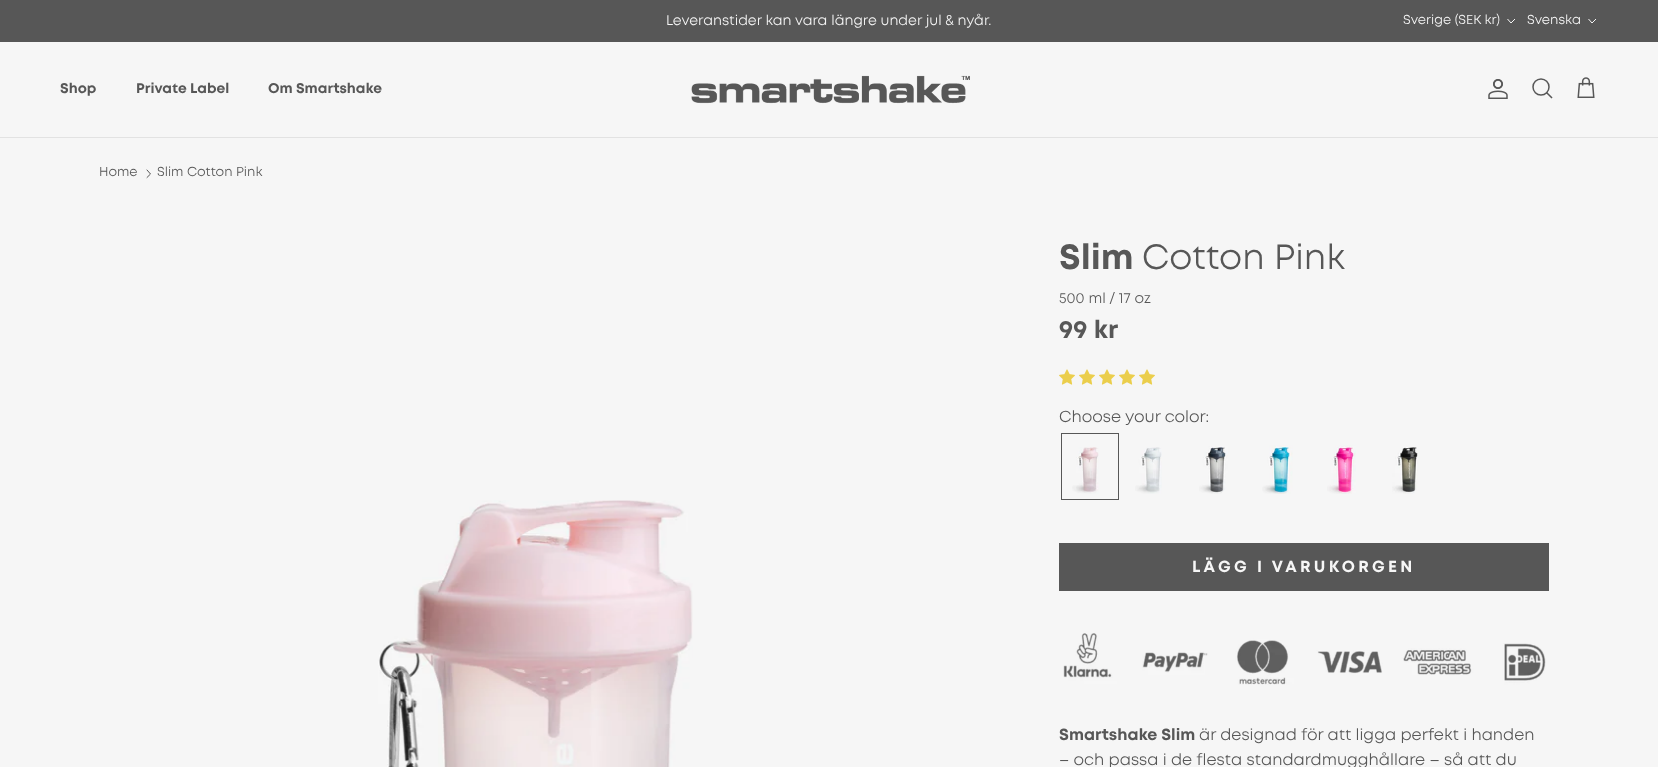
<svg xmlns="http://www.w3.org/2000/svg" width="1658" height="767">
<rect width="100%" height="100%" fill="#f6f6f6"/>
<rect width="1658" height="42" fill="#575757"/>
<text x="666" y="25" style="font-family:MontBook;font-size:14px;fill:#f6f6f6">Leveranstider kan vara längre under jul &amp; nyår.</text>
<text x="1403" y="24" style="font-family:MontBook;font-size:13px;fill:#f6f6f6">Sverige (SEK kr)</text>
<path d="M1515 19l-4 4l-3.5-4" fill="none" stroke="#f6f6f6"/>
<text x="1527" y="24" style="font-family:MontBook;font-size:13px;fill:#f6f6f6">Svenska</text>
<path d="M1596 19l-4 4l-3.5-4" fill="none" stroke="#f6f6f6"/>
<rect y="137" width="1658" height="1" fill="#e2e2e2"/>
<text x="60" y="93" style="font-family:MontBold;font-size:14px;fill:#575757">Shop</text>
<text x="136" y="93" style="font-family:MontBold;font-size:14px;fill:#575757">Private Label</text>
<text x="268" y="93" style="font-family:MontBold;font-size:14px;fill:#575757">Om Smartshake</text>
<image x="691" y="75" width="279" height="29" href="media/1.png"/>
<image x="1488" y="79" width="20" height="20" href="media/2.png"/>
<circle cx="1541" cy="87" r="8" fill="none" stroke="#575757" stroke-width="1.5"/>
<path d="M1547 93l4.5 4.5" fill="none" stroke="#575757" stroke-width="1.5" stroke-linecap="square"/>
<image x="1577" y="77" width="18" height="21" href="media/3.png"/>
<text x="99" y="176" style="font-family:MontBook;font-size:13px;fill:#575757">Home</text>
<path d="M147 177.5l3.5-3.5l-3.5-4" fill="none" stroke="#575757" stroke-linecap="round" stroke-linejoin="round"/>
<text x="157" y="176" style="font-family:MontBook;font-size:13px;fill:#575757">Slim Cotton Pink</text>
<image x="378" y="500" width="315" height="267" href="media/4.png"/>
<text x="1059" y="269" style="font-family:MontBold;font-size:35px;fill:#575757">Slim</text>
<text x="1142" y="269" style="font-family:MontBook;font-size:35px;fill:#575757">Cotton Pink</text>
<text x="1059" y="303" style="font-family:MontBook;font-size:14.5px;fill:#575757">500 ml / 17 oz</text>
<text x="1059" y="338" style="font-family:MontBold;font-size:25px;fill:#575757">99 kr</text>
<image x="1059" y="369" width="16" height="16" href="media/5.png"/>
<image x="1079" y="369" width="16" height="16" href="media/5.png"/>
<image x="1099" y="369" width="16" height="16" href="media/5.png"/>
<image x="1119" y="369" width="16" height="16" href="media/5.png"/>
<image x="1139" y="369" width="16" height="16" href="media/5.png"/>
<text x="1059" y="422" style="font-family:MontBook;font-size:16px;fill:#575757">Choose your color:</text>
<rect x="1061.5" y="433.5" width="57" height="66" fill="none" stroke="#575757"/>
<image x="1072" y="447" width="27" height="47" href="media/6.png"/>
<image x="1135" y="447" width="27" height="47" href="media/7.png"/>
<image x="1199" y="446" width="29" height="48" href="media/8.png"/>
<image x="1262" y="445" width="31" height="49" href="media/9.png"/>
<image x="1327" y="445" width="29" height="49" href="media/10.png"/>
<image x="1392" y="447" width="26" height="47" href="media/11.png"/>
<rect x="1059" y="543" width="490" height="48" fill="#575757"/>
<text x="1192" y="572" style="font-family:MontBold;font-size:16px;letter-spacing:3.25px;fill:#f6f6f6">LÄGG I VARUKORGEN</text>
<image x="1063" y="633" width="483" height="52" href="media/12.png"/>
<text x="1059" y="740" style="font-family:MontBold;font-size:16px;fill:#575757">Smartshake Slim</text>
<text x="1199" y="740" style="font-family:MontBook;font-size:16px;fill:#575757">är designad för att ligga perfekt i handen</text>
<text x="1059" y="765" style="font-family:MontBook;font-size:16px;fill:#575757">– och passa i de flesta standardmugghållare – så att du</text>
</svg>
